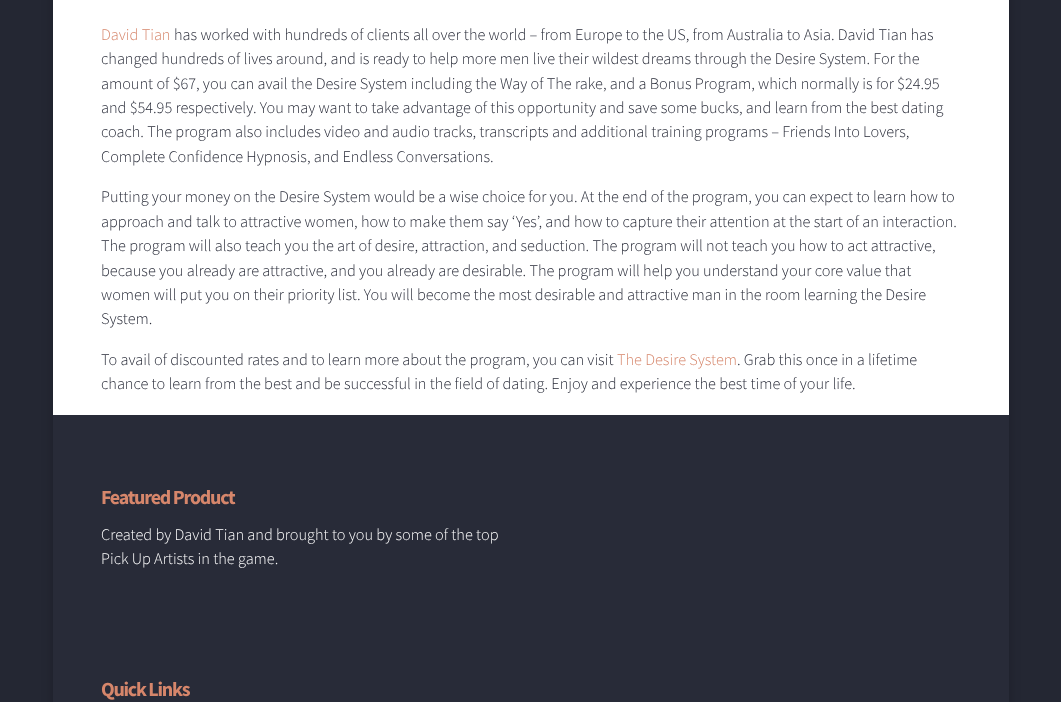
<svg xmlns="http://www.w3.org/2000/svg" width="1061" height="702">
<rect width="100%" height="100%" fill="#242733"/>
<rect x="53" y="-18" width="956" height="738" fill="#00000033" filter="blur(6px)"/>
<rect x="53" width="956" height="415" fill="#fff"/>
<text x="101" y="40" style="font-family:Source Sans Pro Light;font-size:16.25px;font-weight:300;fill:#d6866b">David Tian</text>
<text x="174" y="40" style="font-family:Source Sans Pro Light;font-size:16.25px;font-weight:300;fill:#282b38">has worked with hundreds of clients all over the world – from Europe to the US, from Australia to Asia. David Tian has</text>
<text x="101" y="64" style="font-family:Source Sans Pro Light;font-size:16.25px;font-weight:300;fill:#282b38">changed hundreds of lives around, and is ready to help more men live their wildest dreams through the Desire System. For the</text>
<text x="101" y="89" style="font-family:Source Sans Pro Light;font-size:16.25px;font-weight:300;fill:#282b38">amount of $67, you can avail the Desire System including the Way of The rake, and a Bonus Program, which normally is for $24.95</text>
<text x="101" y="113" style="font-family:Source Sans Pro Light;font-size:16.25px;font-weight:300;fill:#282b38">and $54.95 respectively. You may want to take advantage of this opportunity and save some bucks, and learn from the best dating</text>
<text x="101" y="137" style="font-family:Source Sans Pro Light;font-size:16.25px;font-weight:300;fill:#282b38">coach. The program also includes video and audio tracks, transcripts and additional training programs – Friends Into Lovers,</text>
<text x="101" y="162" style="font-family:Source Sans Pro Light;font-size:16.25px;font-weight:300;fill:#282b38">Complete Confidence Hypnosis, and Endless Conversations.</text>
<text x="101" y="202" style="font-family:Source Sans Pro Light;font-size:16.25px;font-weight:300;fill:#282b38">Putting your money on the Desire System would be a wise choice for you. At the end of the program, you can expect to learn how to</text>
<text x="101" y="227" style="font-family:Source Sans Pro Light;font-size:16.25px;font-weight:300;fill:#282b38">approach and talk to attractive women, how to make them say ‘Yes’, and how to capture their attention at the start of an interaction.</text>
<text x="101" y="251" style="font-family:Source Sans Pro Light;font-size:16.25px;font-weight:300;fill:#282b38">The program will also teach you the art of desire, attraction, and seduction. The program will not teach you how to act attractive,</text>
<text x="101" y="276" style="font-family:Source Sans Pro Light;font-size:16.25px;font-weight:300;fill:#282b38">because you already are attractive, and you already are desirable. The program will help you understand your core value that</text>
<text x="101" y="300" style="font-family:Source Sans Pro Light;font-size:16.25px;font-weight:300;fill:#282b38">women will put you on their priority list. You will become the most desirable and attractive man in the room learning the Desire</text>
<text x="101" y="324" style="font-family:Source Sans Pro Light;font-size:16.25px;font-weight:300;fill:#282b38">System.</text>
<text x="101" y="365" style="font-family:Source Sans Pro Light;font-size:16.25px;font-weight:300;fill:#282b38">To avail of discounted rates and to learn more about the program, you can visit</text>
<text x="617" y="365" style="font-family:Source Sans Pro Light;font-size:16.25px;font-weight:300;fill:#d6866b">The Desire System</text>
<text x="737" y="365" style="font-family:Source Sans Pro Light;font-size:16.25px;font-weight:300;fill:#282b38">. Grab this once in a lifetime</text>
<text x="101" y="389" style="font-family:Source Sans Pro Light;font-size:16.25px;font-weight:300;fill:#282b38">chance to learn from the best and be successful in the field of dating. Enjoy and experience the best time of your life.</text>
<rect x="53" y="415" width="956" height="287" fill="#282b38"/>
<text x="101" y="504" style="font-family:Source Sans Pro;font-size:20px;font-weight:bold;letter-spacing:-1.25px;fill:#d6866b">Featured Product</text>
<text x="101" y="540" style="font-family:Source Sans Pro Light;font-size:16.25px;font-weight:300;fill:#fff">Created by David Tian and brought to you by some of the top</text>
<text x="101" y="564" style="font-family:Source Sans Pro Light;font-size:16.25px;font-weight:300;fill:#fff">Pick Up Artists in the game.</text>
<text x="101" y="696" style="font-family:Source Sans Pro;font-size:20px;font-weight:bold;letter-spacing:-1.25px;fill:#d6866b">Quick Links</text>
</svg>
